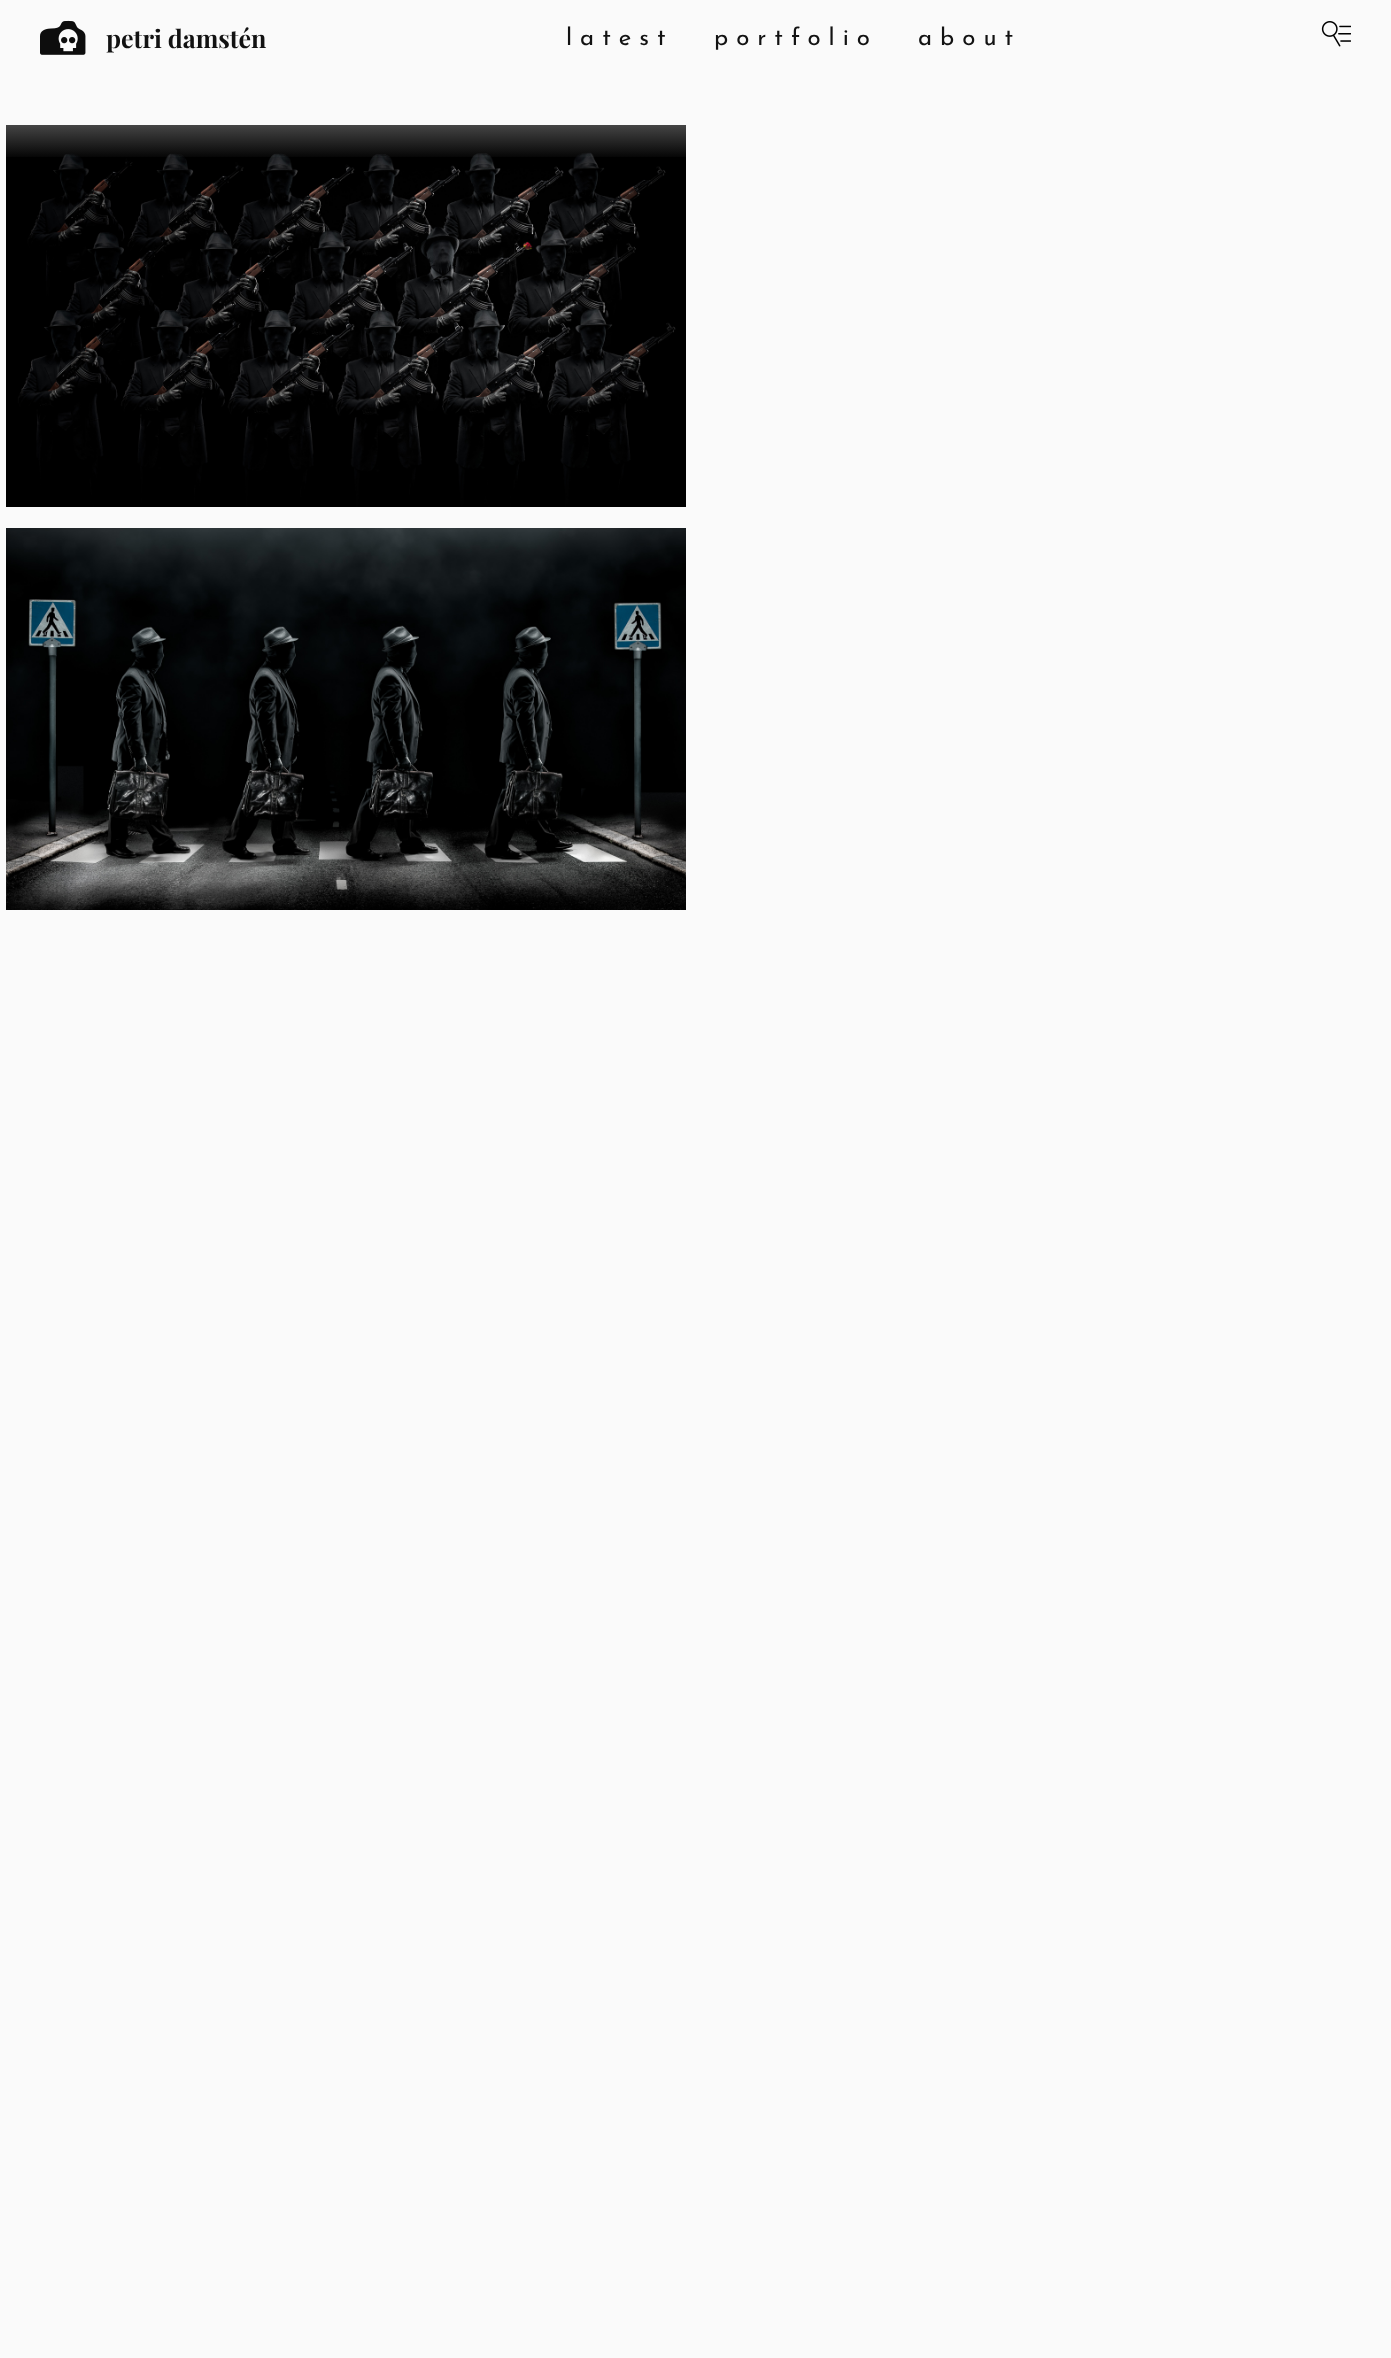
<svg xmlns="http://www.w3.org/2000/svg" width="1391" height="2358">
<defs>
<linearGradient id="g1" gradientUnits="userSpaceOnUse" x1="696" y1="0" x2="696" y2="160"><stop offset="0" stop-color="#fafafa" stop-opacity="0.95"/><stop offset="0.4" stop-color="#fafafa" stop-opacity="0.75"/><stop offset="1" stop-color="#fafafa" stop-opacity="0"/></linearGradient>
</defs>
<rect width="100%" height="100%" fill="#fafafa"/>
<image x="6" y="125" width="680" height="382" href="media/3.png"/>
<rect x="6" y="125" width="680" height="32" fill="url(#g1)"/>
<image x="40" y="20" width="46" height="35" href="media/1.png"/>
<text x="106" y="48" style="font-family:Playfair Display;font-size:25px;font-weight:bold;fill:#121212">petri damstén</text>
<text x="566" y="45" style="font-family:Josefin Sans;font-size:24px;font-weight:100;letter-spacing:8px;fill:#121212">latest</text>
<text x="714" y="45" style="font-family:Josefin Sans;font-size:24px;font-weight:100;letter-spacing:8px;fill:#121212">portfolio</text>
<text x="918" y="45" style="font-family:Josefin Sans;font-size:24px;font-weight:100;letter-spacing:8px;fill:#121212">about</text>
<image x="1321" y="21" width="30" height="26" href="media/2.png"/>
<image x="6" y="528" width="680" height="382" href="media/4.png"/>
</svg>
